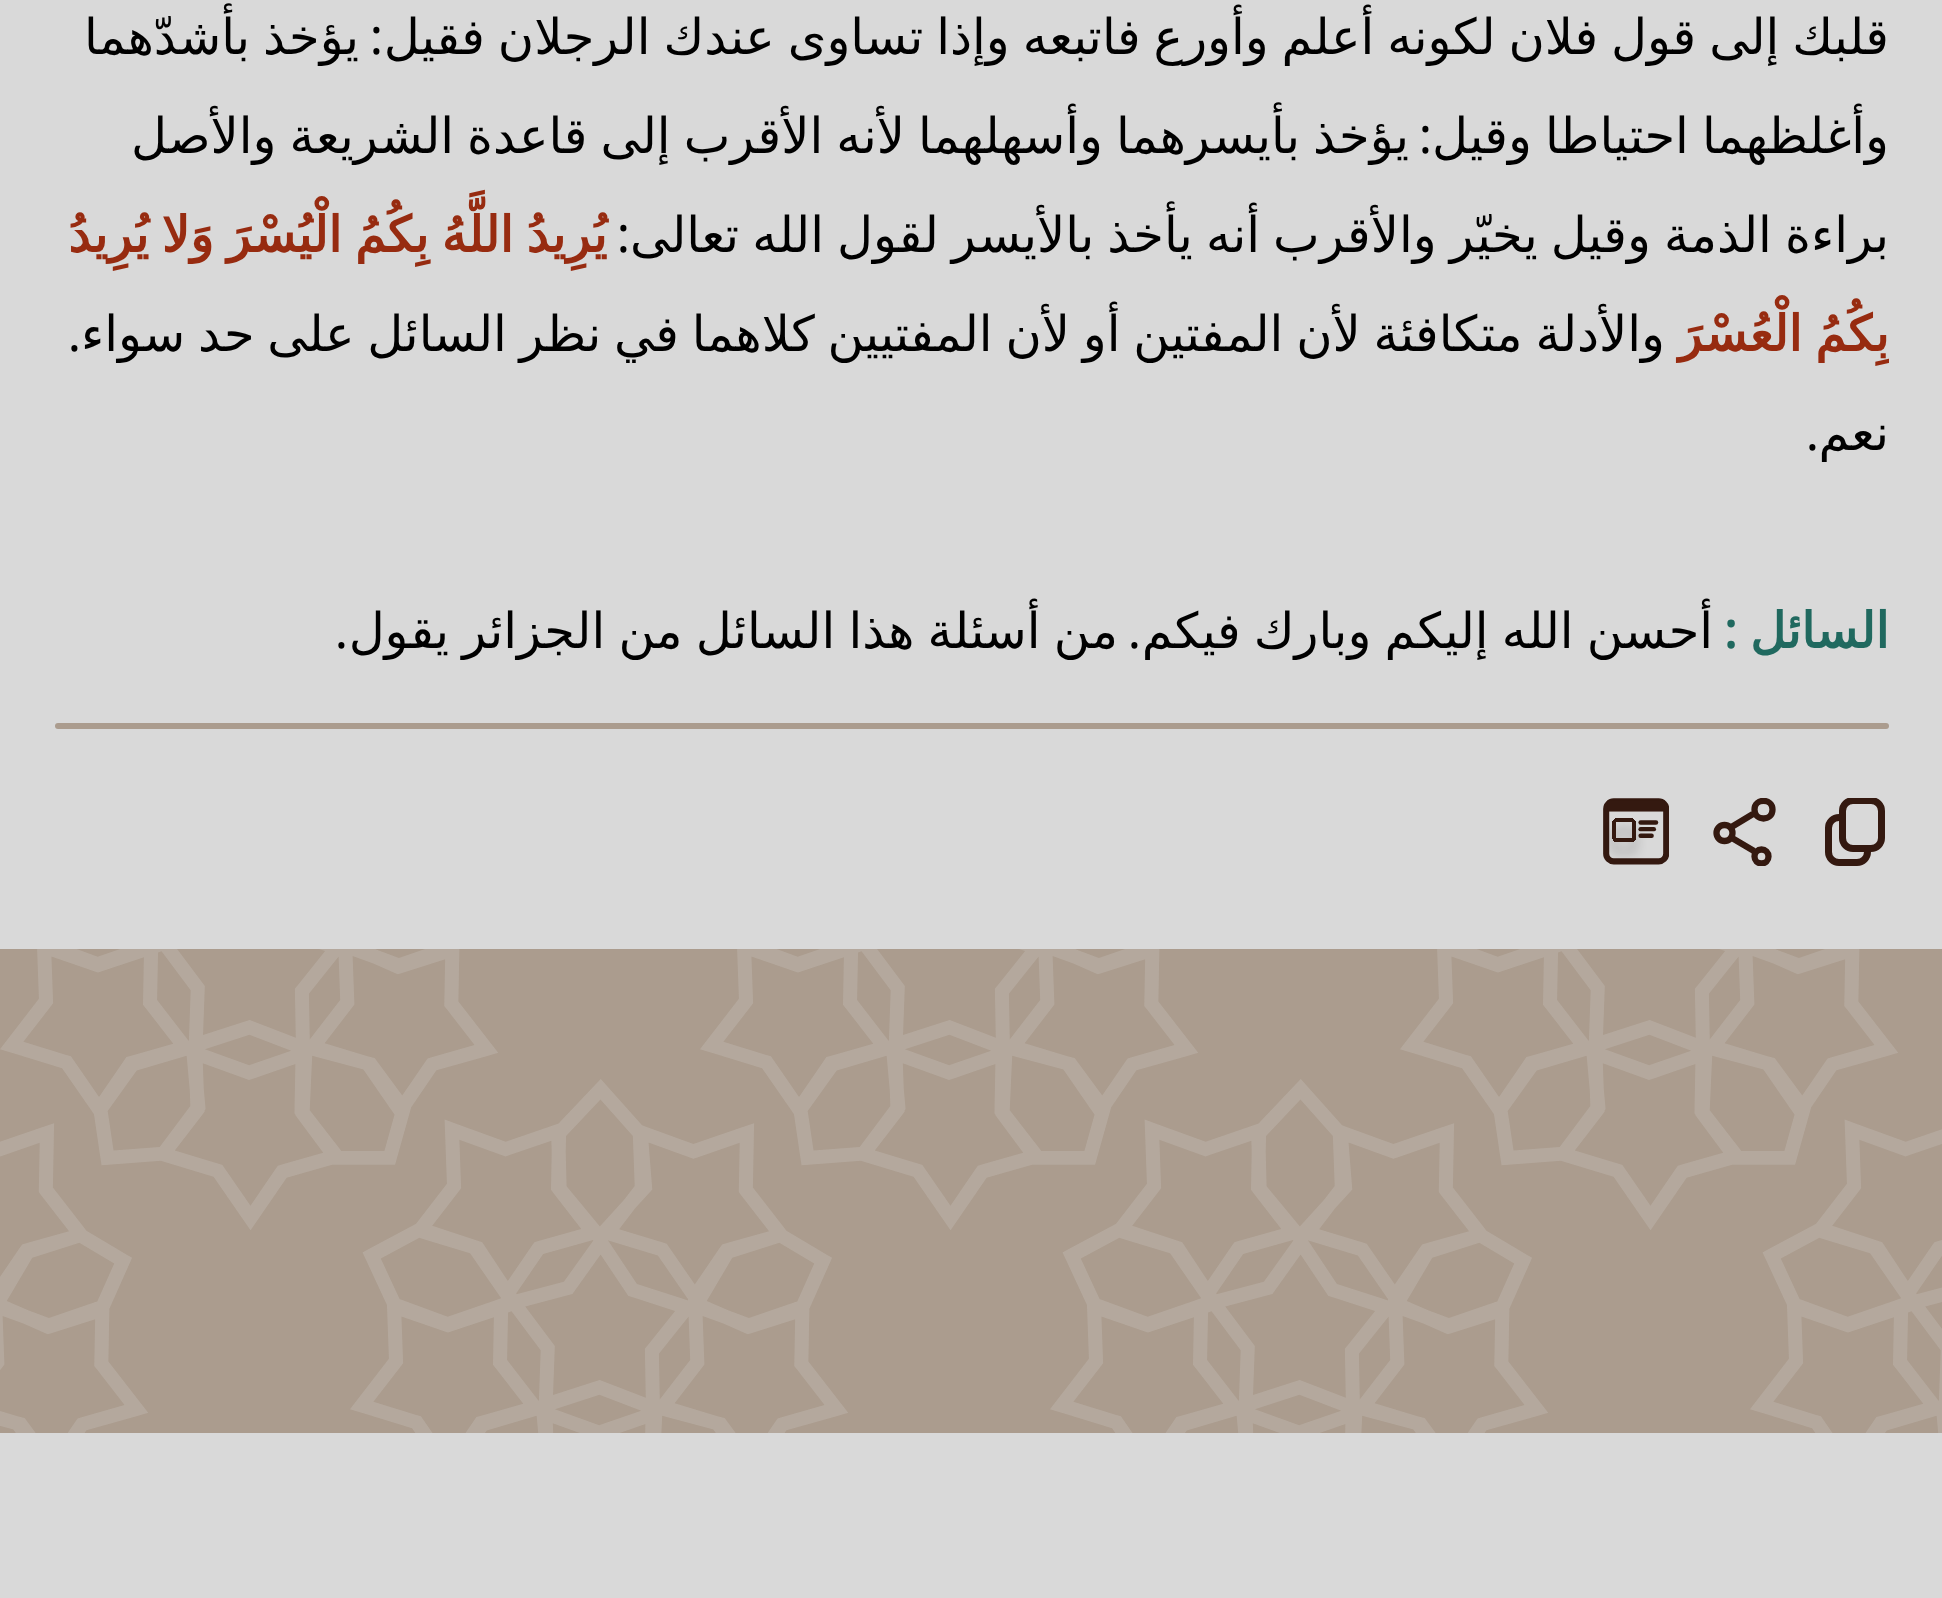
<svg xmlns="http://www.w3.org/2000/svg" width="1942" height="1598">
<defs>
<clipPath id="clip1"><rect x="55" width="1834" height="679"/></clipPath>
<clipPath id="clip2"><rect x="1821" y="798" width="68" height="68"/></clipPath>
<clipPath id="clip3"><rect x="1711" y="798" width="68" height="68"/></clipPath>
</defs>
<rect width="100%" height="100%" fill="#ab9c8e"/>
<rect width="1942" height="949" fill="#d9d9d9"/>
<g clip-path="url(#clip1)">
<text x="1889" y="54" word-spacing="-2.75" style="font-family:DejaVu Sans;font-size:49.5px;direction:rtl;fill:#000">قلبك إلى قول فلان لكونه أعلم وأورع فاتبعه وإذا تساوى عندك الرجلان فقيل</text>
</g>
<text x="383" y="54" style="font-family:Noto Sans;font-size:49.5px;direction:rtl;fill:#000">:</text>
<text x="359" y="54" word-spacing="-2.75" style="font-family:DejaVu Sans;font-size:49.5px;direction:rtl;fill:#000">يؤخذ بأشدّهما</text>
<g clip-path="url(#clip1)">
<text x="1889" y="153" word-spacing="-2.6" style="font-family:DejaVu Sans;font-size:49.5px;direction:rtl;fill:#000">وأغلظهما احتياطا وقيل</text>
</g>
<text x="1409" y="153" word-spacing="-2.6" style="font-family:DejaVu Sans;font-size:49.5px;direction:rtl;fill:#000">يؤخذ بأيسرهما وأسهلهما لأنه الأقرب إلى قاعدة الشريعة والأصل</text>
<text x="1432" y="153" style="font-family:Noto Sans;font-size:49.5px;direction:rtl;fill:#000">:</text>
<g clip-path="url(#clip1)">
<text x="1889" y="252" word-spacing="-2.6" style="font-family:DejaVu Sans;font-size:49.5px;direction:rtl;fill:#000">براءة الذمة وقيل يخيّر والأقرب أنه يأخذ بالأيسر لقول الله تعالى</text>
</g>
<text x="630" y="252" style="font-family:Noto Sans;font-size:49.5px;direction:rtl;fill:#000">:</text>
<text x="607" y="252" word-spacing="-2.9" style="font-family:DejaVu Sans;font-size:49.5px;font-weight:bold;direction:rtl;fill:#972b10">يُرِيدُ اللَّهُ بِكُمُ الْيُسْرَ وَلا يُرِيدُ</text>
<g clip-path="url(#clip1)">
<text x="1889" y="351" word-spacing="-2.9" style="font-family:DejaVu Sans;font-size:49.5px;font-weight:bold;direction:rtl;fill:#972b10">بِكُمُ الْعُسْرَ</text>
</g>
<text x="1665" y="351" word-spacing="-2.9" style="font-family:DejaVu Sans;font-size:49.5px;direction:rtl;fill:#000">والأدلة متكافئة لأن المفتين أو لأن المفتيين كلاهما في نظر السائل على حد سواء</text>
<text x="81" y="351" style="font-family:Noto Sans;font-size:49.5px;direction:rtl;fill:#000">.</text>
<text x="1889" y="450" style="font-family:DejaVu Sans;font-size:49.5px;direction:rtl;fill:#000">نعم</text>
<text x="1819" y="450" style="font-family:Noto Sans;font-size:49.5px;direction:rtl;fill:#000">.</text>
<text x="1889" y="648" style="font-family:DejaVu Sans;font-size:49.5px;font-weight:bold;direction:rtl;fill:#20695f">السائل</text>
<text x="1737" y="648" style="font-family:Noto Sans;font-size:49.5px;font-weight:bold;direction:rtl;fill:#20695f">:</text>
<text x="1713" y="648" word-spacing="-2.5" style="font-family:DejaVu Sans;font-size:49.5px;direction:rtl;fill:#000">أحسن الله إليكم وبارك فيكم</text>
<text x="1141" y="648" style="font-family:Noto Sans;font-size:49.5px;direction:rtl;fill:#000">.</text>
<text x="1118" y="648" word-spacing="-2.5" style="font-family:DejaVu Sans;font-size:49.5px;direction:rtl;fill:#000">من أسئلة هذا السائل من الجزائر يقول</text>
<text x="348" y="648" style="font-family:Noto Sans;font-size:49.5px;direction:rtl;fill:#000">.</text>
<rect x="55" y="723" width="1834" height="6" rx="3" fill="#ab9c8e"/>
<rect x="1828.5" y="817.5" width="39" height="45" rx="10.5" fill="none" stroke="#341910" stroke-width="7"/>
<g clip-path="url(#clip2)">
<rect x="1842.5" y="800.5" width="39" height="48" rx="10.5" fill="#d9d9d9" stroke="#341910" stroke-width="7"/>
</g>
<g clip-path="url(#clip3)">
<path d="M1772.5 809.5c0 12-18 12-18 0c0-11.5 18-11.5 18 0z" fill="none" stroke="#341910" stroke-width="6.3"/>
</g>
<circle cx="1724.5" cy="833" r="8" fill="none" stroke="#341910" stroke-width="6.3"/>
<g clip-path="url(#clip3)">
<circle cx="1761.5" cy="856.5" r="7" fill="none" stroke="#341910" stroke-width="6.3"/>
</g>
<path d="M1729 828.5l24-14.5m-21 24l22 13" fill="none" stroke="#341910" stroke-width="6.3"/>
<image x="1603" y="798" width="66" height="67" href="media/1.png"/>
<rect y="1433" width="1942" height="165" fill="#d9d9d9"/>
<image x="0" y="949" width="1942" height="484" href="media/2.png"/>
</svg>
